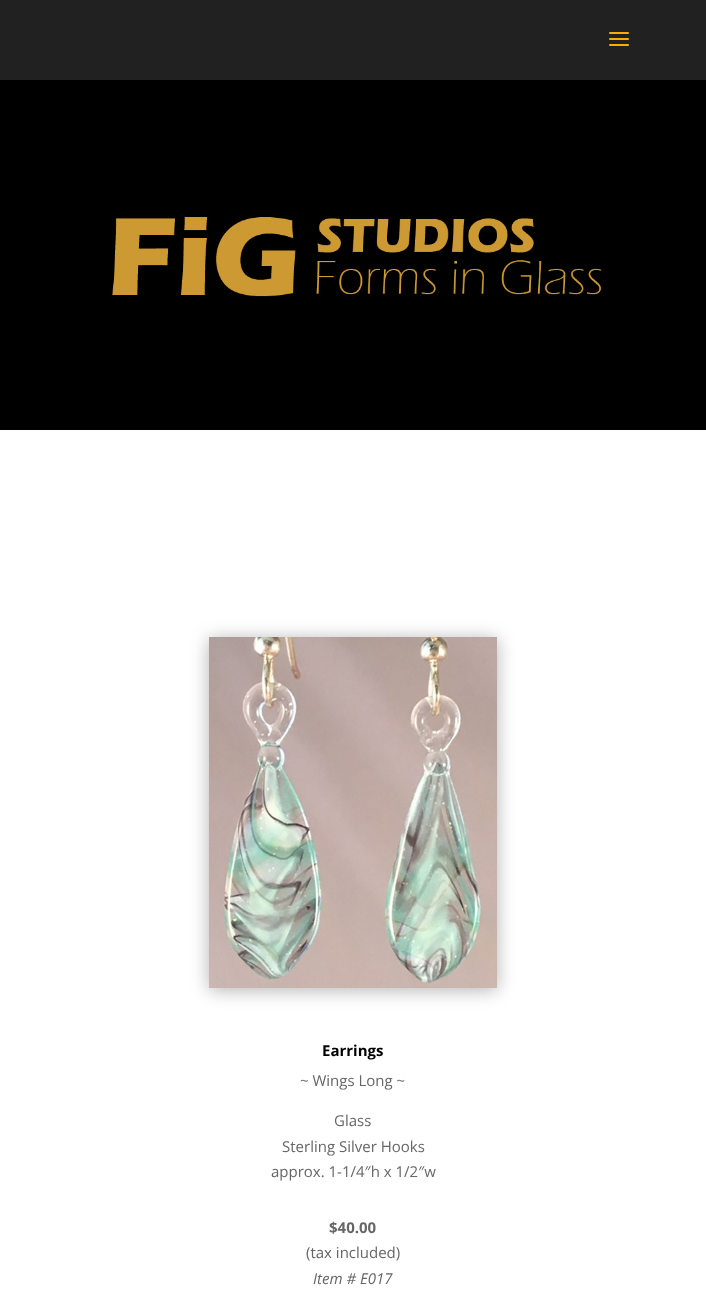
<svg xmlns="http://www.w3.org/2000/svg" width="706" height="1294">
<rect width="100%" height="100%" fill="#fff"/>
<rect width="706" height="80" fill="#212121"/>
<image x="609" y="32" width="20" height="14" href="media/1.png"/>
<rect y="80" width="706" height="350" fill="#000"/>
<image x="112" y="217" width="490" height="80" href="media/2.png"/>
<rect x="209" y="639" width="288" height="351" fill="#0000004d" filter="blur(9px)"/>
<image x="209" y="637" width="288" height="351" href="media/3.png"/>
<text x="322" y="1056" style="font-family:Open Sans;font-size:15px;font-weight:bold;fill:#000">Earrings</text>
<text x="300" y="1086" style="font-family:Open Sans;font-size:15px;fill:#666">~ Wings Long ~</text>
<text x="334" y="1126" style="font-family:Open Sans;font-size:15px;fill:#666">Glass</text>
<text x="282" y="1152" style="font-family:Open Sans;font-size:15px;fill:#666">Sterling Silver Hooks</text>
<text x="271" y="1177" style="font-family:Open Sans;font-size:15px;fill:#666">approx. 1-1/4″h x 1/2″w</text>
<text x="329" y="1233" style="font-family:Open Sans;font-size:15px;font-weight:bold;fill:#666">$40.00</text>
<text x="306" y="1258" style="font-family:Open Sans;font-size:15px;fill:#666">(tax included)</text>
<text x="313" y="1284" style="font-family:Open Sans;font-size:15px;font-style:italic;fill:#666">Item # E017</text>
</svg>
